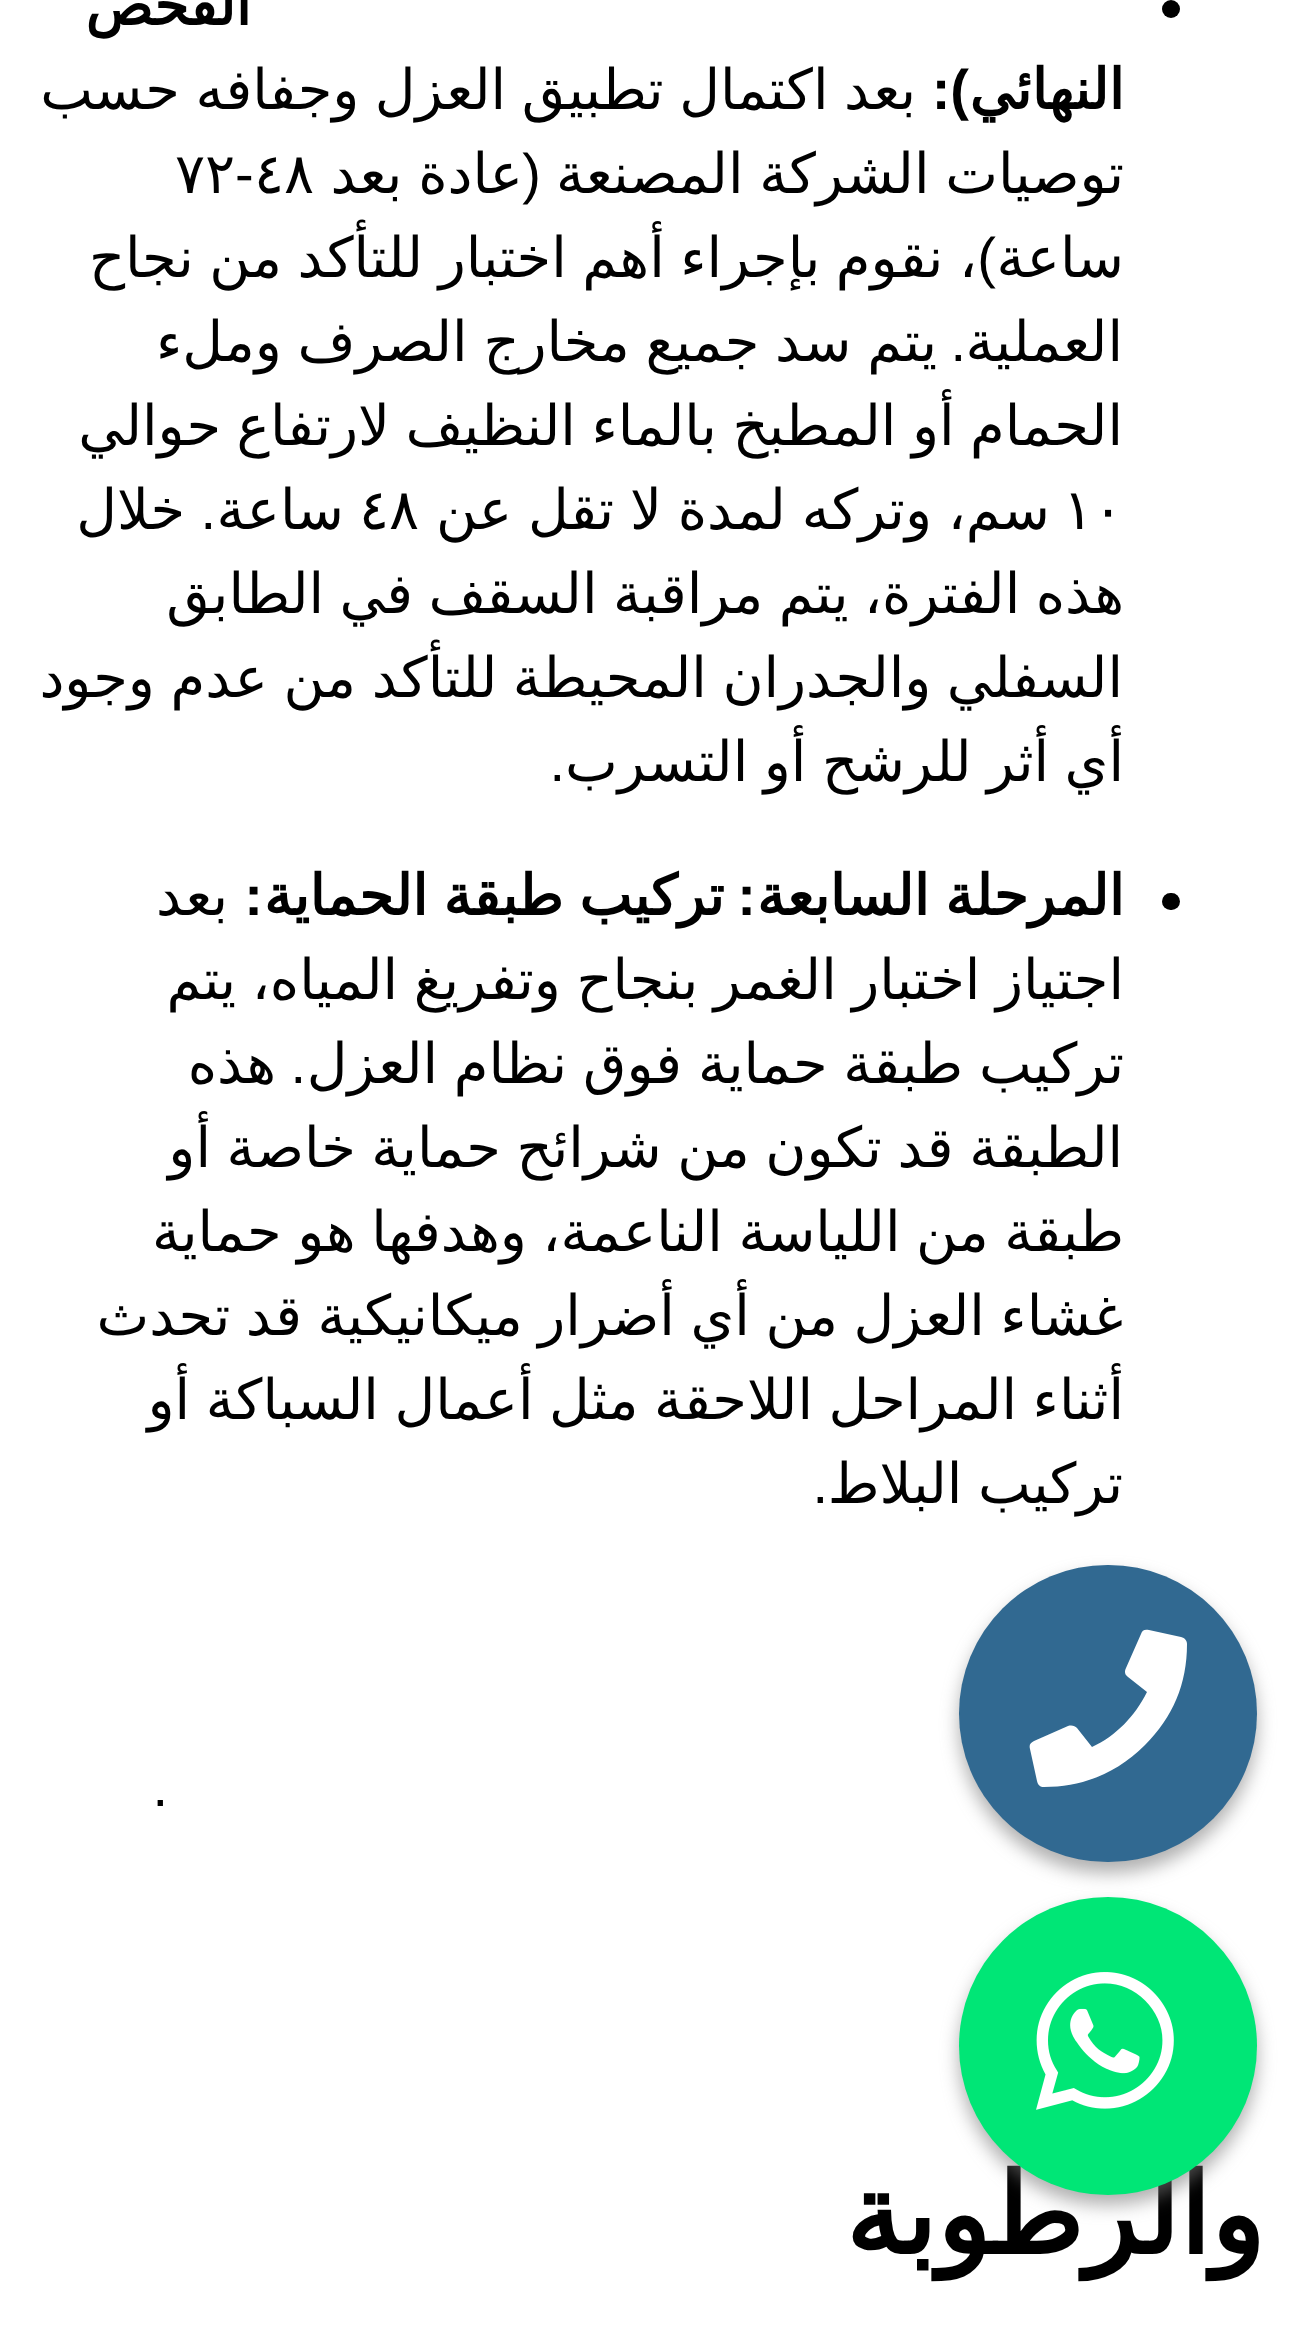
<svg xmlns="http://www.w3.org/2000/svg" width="1297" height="2326">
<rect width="100%" height="100%" fill="#fff"/>
<circle cx="1171" cy="9" r="9" fill="#000"/>
<text x="251" y="25" style="font-family:DejaVu Sans;font-size:56px;font-weight:bold;direction:rtl;fill:#000">الفحص</text>
<text x="1124" y="109" style="font-family:DejaVu Sans;font-size:56px;font-weight:bold;direction:rtl;fill:#000">النهائي</text>
<text x="969" y="109" style="font-family:Liberation Sans;font-size:56px;font-weight:bold;direction:rtl;fill:#000">):</text>
<text x="916" y="109" word-spacing="-2.25" style="font-family:DejaVu Sans;font-size:56px;direction:rtl;fill:#000">بعد اكتمال تطبيق العزل وجفافه حسب</text>
<text x="1124" y="193" word-spacing="-2" style="font-family:DejaVu Sans;font-size:56px;direction:rtl;fill:#000">توصيات الشركة المصنعة</text>
<text x="541" y="193" style="font-family:Liberation Sans;font-size:56px;direction:rtl;fill:#000">(</text>
<text x="523" y="193" word-spacing="-2" style="font-family:DejaVu Sans;font-size:56px;direction:rtl;fill:#000">عادة بعد</text>
<text x="254" y="193" style="font-family:DejaVu Sans;font-size:56px;fill:#000">٤٨</text>
<text x="235" y="193" style="font-family:Liberation Sans;font-size:56px;fill:#000">-</text>
<text x="175" y="193" style="font-family:DejaVu Sans;font-size:56px;fill:#000">٧٢</text>
<text x="1124" y="277" style="font-family:DejaVu Sans;font-size:56px;direction:rtl;fill:#000">ساعة</text>
<text x="977" y="277" word-spacing="-2.25" style="font-family:DejaVu Sans;font-size:56px;direction:rtl;fill:#000">، نقوم بإجراء أهم اختبار للتأكد من نجاح</text>
<text x="996" y="277" style="font-family:Liberation Sans;font-size:56px;direction:rtl;fill:#000">)</text>
<text x="1123" y="361" style="font-family:DejaVu Sans;font-size:56px;direction:rtl;fill:#000">العملية</text>
<text x="966" y="361" style="font-family:Liberation Sans;font-size:56px;direction:rtl;fill:#000">.</text>
<text x="937" y="361" word-spacing="-2" style="font-family:DejaVu Sans;font-size:56px;direction:rtl;fill:#000">يتم سد جميع مخارج الصرف وملء</text>
<text x="1123" y="445" word-spacing="-2.25" style="font-family:DejaVu Sans;font-size:56px;direction:rtl;fill:#000">الحمام أو المطبخ بالماء النظيف لارتفاع حوالي</text>
<text x="1063" y="529" style="font-family:DejaVu Sans;font-size:56px;fill:#000">١٠</text>
<text x="1050" y="529" word-spacing="-2" style="font-family:DejaVu Sans;font-size:56px;direction:rtl;fill:#000">سم، وتركه لمدة لا تقل عن</text>
<text x="359" y="529" style="font-family:DejaVu Sans;font-size:56px;fill:#000">٤٨</text>
<text x="344" y="529" style="font-family:DejaVu Sans;font-size:56px;direction:rtl;fill:#000">ساعة</text>
<text x="216" y="529" style="font-family:Liberation Sans;font-size:56px;direction:rtl;fill:#000">.</text>
<text x="185" y="529" style="font-family:DejaVu Sans;font-size:56px;direction:rtl;fill:#000">خلال</text>
<text x="1124" y="613" word-spacing="-2.25" style="font-family:DejaVu Sans;font-size:56px;direction:rtl;fill:#000">هذه الفترة، يتم مراقبة السقف في الطابق</text>
<text x="1123" y="697" word-spacing="-2.25" style="font-family:DejaVu Sans;font-size:56px;direction:rtl;fill:#000">السفلي والجدران المحيطة للتأكد من عدم وجود</text>
<text x="1124" y="781" word-spacing="-2.25" style="font-family:DejaVu Sans;font-size:56px;direction:rtl;fill:#000">أي أثر للرشح أو التسرب</text>
<text x="565" y="781" style="font-family:Liberation Sans;font-size:56px;direction:rtl;fill:#000">.</text>
<rect x="1162" y="893" width="18" height="17" rx="8.5" fill="#000"/>
<text x="1124" y="915" word-spacing="-2" style="font-family:DejaVu Sans;font-size:56px;font-weight:bold;direction:rtl;fill:#000">المرحلة السابعة</text>
<text x="756" y="915" style="font-family:Liberation Sans;font-size:56px;font-weight:bold;direction:rtl;fill:#000">:</text>
<text x="724" y="915" word-spacing="-2" style="font-family:DejaVu Sans;font-size:56px;font-weight:bold;direction:rtl;fill:#000">تركيب طبقة الحماية</text>
<text x="263" y="915" style="font-family:Liberation Sans;font-size:56px;font-weight:bold;direction:rtl;fill:#000">:</text>
<text x="228" y="915" style="font-family:DejaVu Sans;font-size:56px;direction:rtl;fill:#000">بعد</text>
<text x="1124" y="999" word-spacing="-2.25" style="font-family:DejaVu Sans;font-size:56px;direction:rtl;fill:#000">اجتياز اختبار الغمر بنجاح وتفريغ المياه، يتم</text>
<text x="1124" y="1083" word-spacing="-2" style="font-family:DejaVu Sans;font-size:56px;direction:rtl;fill:#000">تركيب طبقة حماية فوق نظام العزل</text>
<text x="306" y="1083" style="font-family:Liberation Sans;font-size:56px;direction:rtl;fill:#000">.</text>
<text x="276" y="1083" style="font-family:DejaVu Sans;font-size:56px;direction:rtl;fill:#000">هذه</text>
<text x="1123" y="1167" word-spacing="-2.25" style="font-family:DejaVu Sans;font-size:56px;direction:rtl;fill:#000">الطبقة قد تكون من شرائح حماية خاصة أو</text>
<text x="1124" y="1251" word-spacing="-2.25" style="font-family:DejaVu Sans;font-size:56px;direction:rtl;fill:#000">طبقة من اللياسة الناعمة، وهدفها هو حماية</text>
<text x="1123" y="1335" word-spacing="-2.25" style="font-family:DejaVu Sans;font-size:56px;direction:rtl;fill:#000">غشاء العزل من أي أضرار ميكانيكية قد تحدث</text>
<text x="1124" y="1419" word-spacing="-2.25" style="font-family:DejaVu Sans;font-size:56px;direction:rtl;fill:#000">أثناء المراحل اللاحقة مثل أعمال السباكة أو</text>
<text x="1123" y="1503" word-spacing="-2.25" style="font-family:DejaVu Sans;font-size:56px;direction:rtl;fill:#000">تركيب البلاط</text>
<text x="828" y="1503" style="font-family:Liberation Sans;font-size:56px;direction:rtl;fill:#000">.</text>
<text x="168" y="1806" style="font-family:Liberation Sans;font-size:56px;direction:rtl;fill:#000">.</text>
<text x="1264" y="2254" style="font-family:DejaVu Sans;font-size:112px;font-weight:bold;direction:rtl;fill:#000">والرطوبة</text>
<rect x="959" y="1575" width="298" height="298" rx="149" fill="#77777796" filter="blur(9px)"/>
<rect x="959" y="1565" width="298" height="297" rx="148.5" fill="#316991"/>
<path d="M1181 1637c4 1 6 4 6 7c0 40-14 73-42 101c-28 28-62 42-101 42c-4 0-6-2-7-6l-7-32c-1-4 0-6 4-8l34-15c4-1 7 0 9 2l15 19c24-11 43-31 55-55l-19-15c-3-2-4-5-2-9l15-34c1-4 4-5 8-4z" fill="#fff"/>
<rect x="959" y="1908" width="298" height="297" rx="148.5" fill="#77777796" filter="blur(9px)"/>
<circle cx="1108" cy="2046" r="149" fill="#00e676"/>
<image x="1036" y="1972" width="138" height="138" href="media/1.png"/>
</svg>
